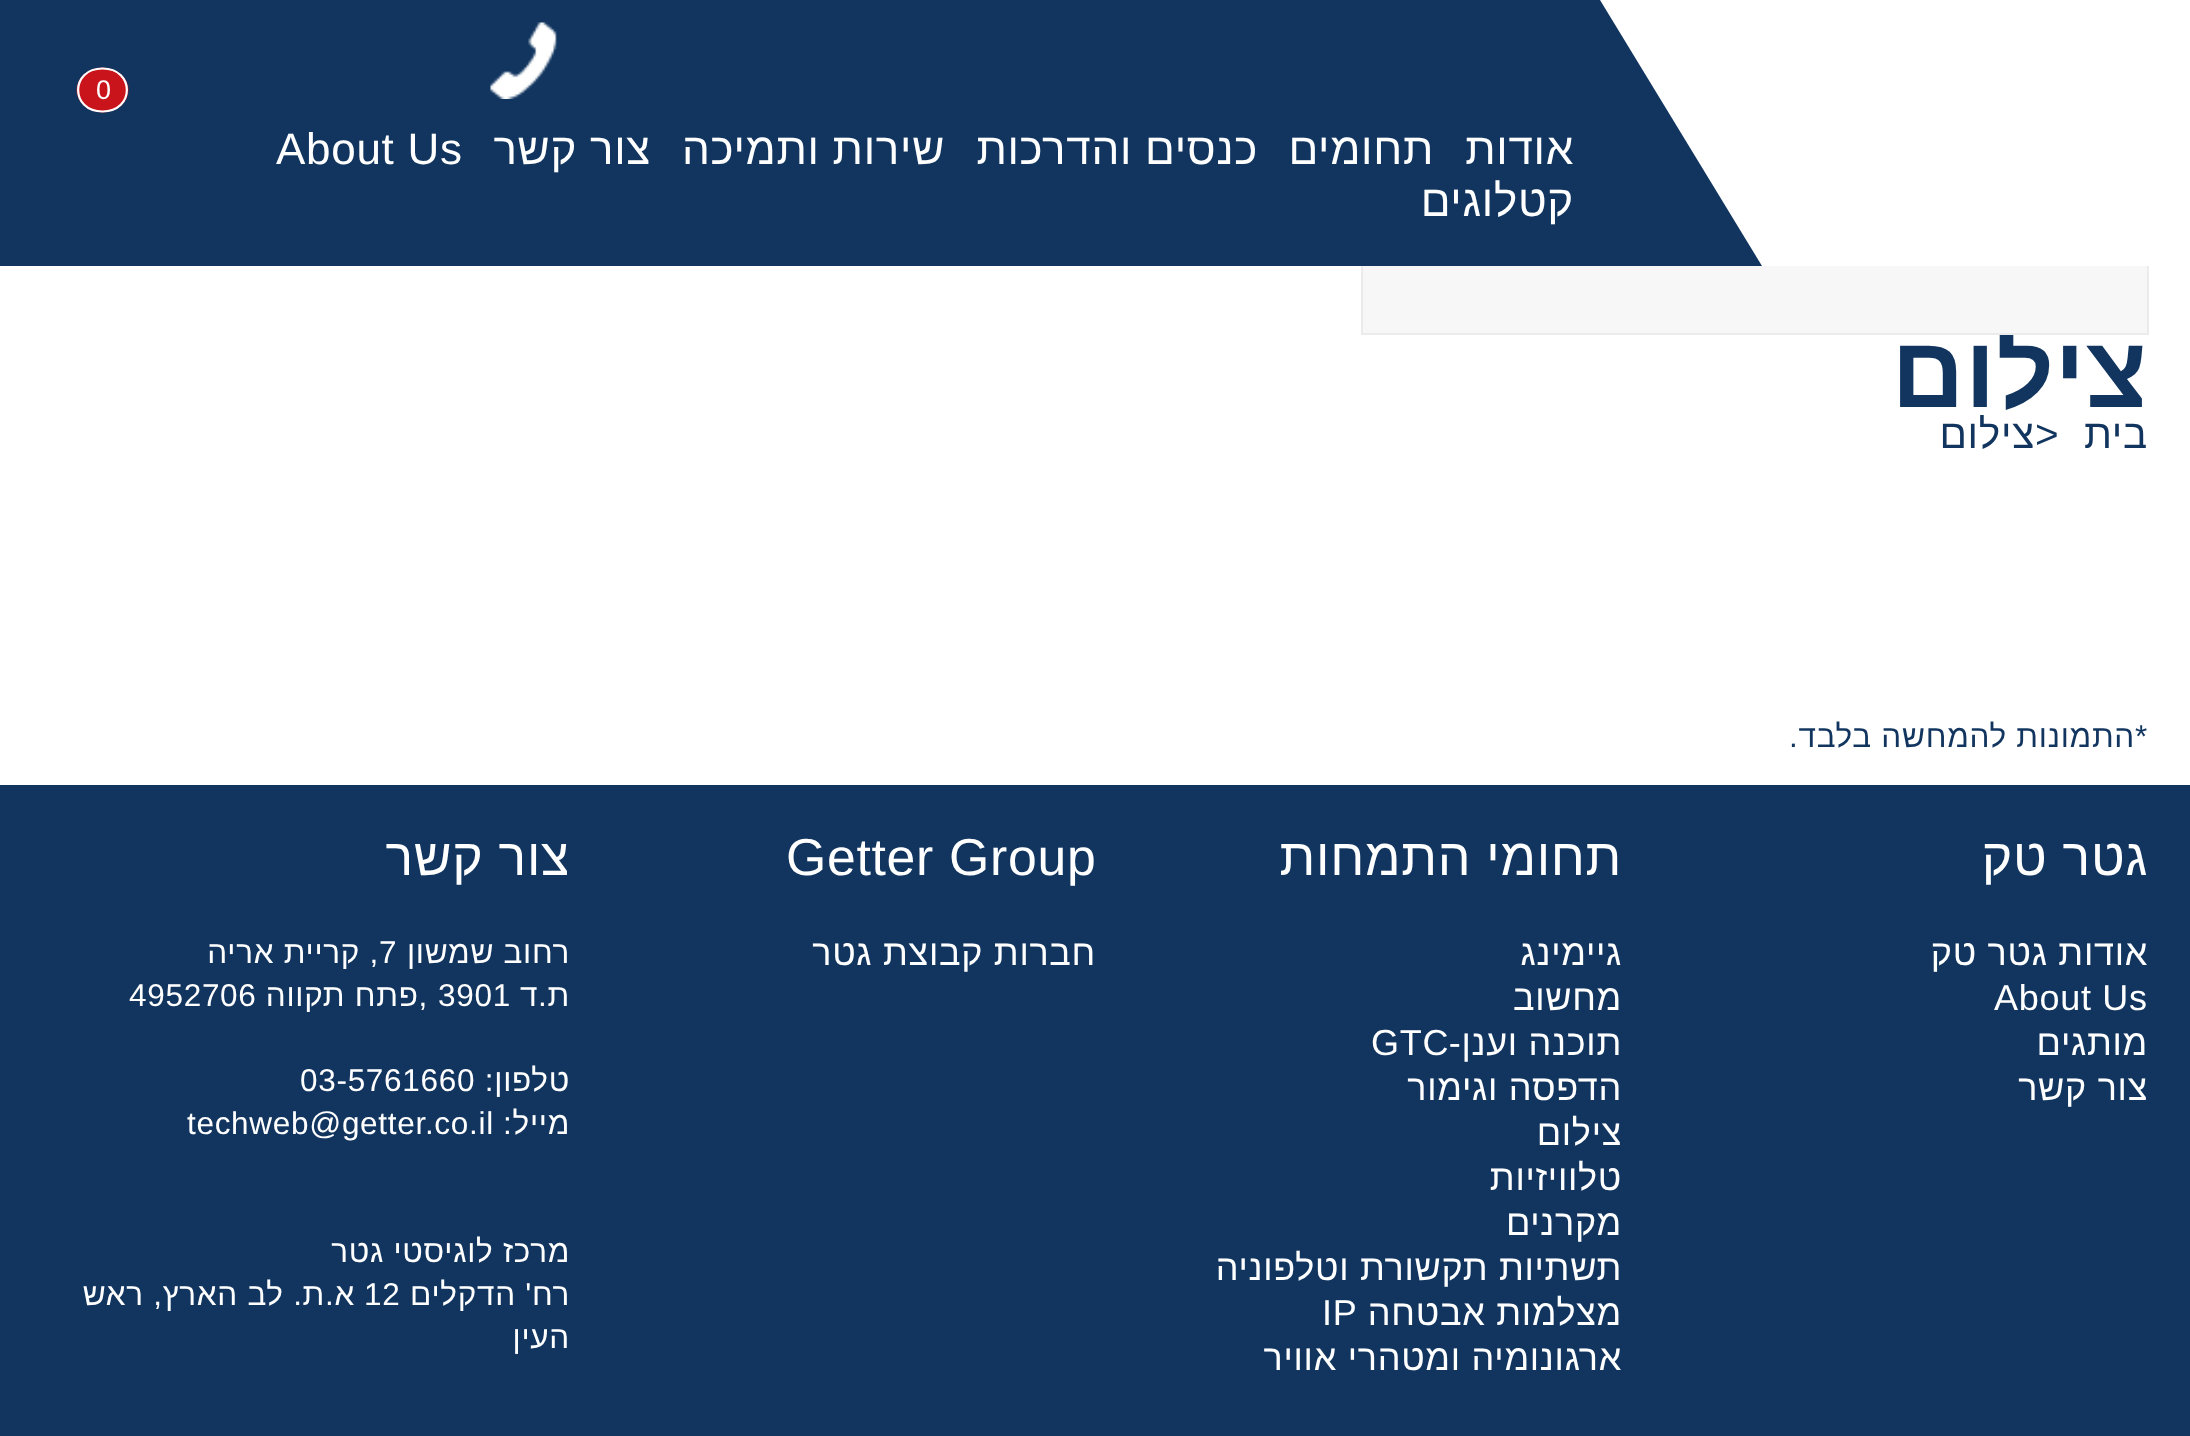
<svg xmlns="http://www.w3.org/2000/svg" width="2190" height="1436">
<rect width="100%" height="100%" fill="#fff"/>
<text x="2148" y="407" style="font-family:Liberation Sans;font-size:101px;font-weight:bold;letter-spacing:0.7px;direction:rtl;fill:#11355f">צילום</text>
<rect x="1363" y="266" width="784" height="67" fill="#f7f7f7"/>
<rect x="1362" y="217" width="786" height="117" fill="none" stroke="#ebebeb" stroke-width="2"/>
<rect width="1600" height="266" fill="#11355f"/>
<rect x="1600" y="216" width="549" height="50" fill="#fff"/>
<path d="M1762 266h-162v-266z" fill="#11355f"/>
<image x="490" y="22" width="67" height="77" href="media/1.png"/>
<ellipse cx="102.5" cy="90" rx="26" ry="22.5" fill="#c9141b"/>
<path d="M102.5 68.5c32.5 0 32.5 43 0 43c-32.5 0-32.5-43 0-43z" fill="none" stroke="#fff" stroke-width="2.2"/>
<text x="96" y="99" style="font-family:Liberation Sans;font-size:27px;letter-spacing:0.7px;fill:#fff">0</text>
<text x="1574" y="164" style="font-family:Liberation Sans;font-size:44px;letter-spacing:0.7px;direction:rtl;fill:#fff">אודות</text>
<text x="1434" y="164" style="font-family:Liberation Sans;font-size:44px;letter-spacing:0.7px;direction:rtl;fill:#fff">תחומים</text>
<text x="1258" y="164" style="font-family:Liberation Sans;font-size:44px;letter-spacing:0.7px;direction:rtl;fill:#fff">כנסים והדרכות</text>
<text x="945" y="164" style="font-family:Liberation Sans;font-size:44px;letter-spacing:0.7px;direction:rtl;fill:#fff">שירות ותמיכה</text>
<text x="651" y="164" style="font-family:Liberation Sans;font-size:44px;letter-spacing:0.7px;direction:rtl;fill:#fff">צור קשר</text>
<text x="276" y="164" style="font-family:Liberation Sans;font-size:44px;letter-spacing:0.7px;fill:#fff">About Us</text>
<text x="1574" y="216" style="font-family:Liberation Sans;font-size:44px;letter-spacing:0.7px;direction:rtl;fill:#fff">קטלוגים</text>
<text x="2148" y="448" style="font-family:Liberation Sans;font-size:40.5px;letter-spacing:0.7px;direction:rtl;fill:#11355f">בית</text>
<text x="2035" y="448" style="font-family:Liberation Sans;font-size:40.5px;letter-spacing:0.7px;fill:#11355f">&gt;</text>
<text x="2035" y="448" style="font-family:Liberation Sans;font-size:40.5px;letter-spacing:0.7px;direction:rtl;fill:#11355f">צילום</text>
<text x="2148" y="747" style="font-family:Liberation Sans;font-size:31.5px;letter-spacing:0.7px;direction:rtl;fill:#11355f">*התמונות להמחשה בלבד.</text>
<rect y="785" width="2190" height="651" fill="#11355f"/>
<text x="2148" y="875" style="font-family:Liberation Sans;font-size:51.75px;letter-spacing:0.7px;direction:rtl;fill:#fff">גטר טק</text>
<text x="2148" y="965" style="font-family:Liberation Sans;font-size:36px;letter-spacing:0.7px;direction:rtl;fill:#fff">אודות גטר טק</text>
<text x="1994" y="1010" style="font-family:Liberation Sans;font-size:36px;letter-spacing:0.7px;fill:#fff">About Us</text>
<text x="2148" y="1055" style="font-family:Liberation Sans;font-size:36px;letter-spacing:0.7px;direction:rtl;fill:#fff">מותגים</text>
<text x="2148" y="1100" style="font-family:Liberation Sans;font-size:36px;letter-spacing:0.7px;direction:rtl;fill:#fff">צור קשר</text>
<text x="1622" y="875" style="font-family:Liberation Sans;font-size:51.75px;letter-spacing:0.7px;direction:rtl;fill:#fff">תחומי התמחות</text>
<text x="1622" y="965" style="font-family:Liberation Sans;font-size:36px;letter-spacing:0.7px;direction:rtl;fill:#fff">גיימינג</text>
<text x="1622" y="1010" style="font-family:Liberation Sans;font-size:36px;letter-spacing:0.7px;direction:rtl;fill:#fff">מחשוב</text>
<text x="1622" y="1055" style="font-family:Liberation Sans;font-size:36px;letter-spacing:0.7px;direction:rtl;fill:#fff">תוכנה וענן-</text>
<text x="1371" y="1055" style="font-family:Liberation Sans;font-size:36px;letter-spacing:0.7px;fill:#fff">GTC</text>
<text x="1622" y="1100" style="font-family:Liberation Sans;font-size:36px;letter-spacing:0.7px;direction:rtl;fill:#fff">הדפסה וגימור</text>
<text x="1622" y="1145" style="font-family:Liberation Sans;font-size:36px;letter-spacing:0.7px;direction:rtl;fill:#fff">צילום</text>
<text x="1622" y="1190" style="font-family:Liberation Sans;font-size:36px;letter-spacing:0.7px;direction:rtl;fill:#fff">טלוויזיות</text>
<text x="1622" y="1235" style="font-family:Liberation Sans;font-size:36px;letter-spacing:0.7px;direction:rtl;fill:#fff">מקרנים</text>
<text x="1622" y="1280" style="font-family:Liberation Sans;font-size:36px;letter-spacing:0.7px;direction:rtl;fill:#fff">תשתיות תקשורת וטלפוניה</text>
<text x="1622" y="1325" style="font-family:Liberation Sans;font-size:36px;letter-spacing:0.7px;direction:rtl;fill:#fff">מצלמות אבטחה</text>
<text x="1322" y="1325" style="font-family:Liberation Sans;font-size:36px;letter-spacing:0.7px;fill:#fff">IP</text>
<text x="1622" y="1370" style="font-family:Liberation Sans;font-size:36px;letter-spacing:0.7px;direction:rtl;fill:#fff">ארגונומיה ומטהרי אוויר</text>
<text x="786" y="875" style="font-family:Liberation Sans;font-size:51.75px;letter-spacing:0.7px;fill:#fff">Getter Group</text>
<text x="1096" y="965" style="font-family:Liberation Sans;font-size:36px;letter-spacing:0.7px;direction:rtl;fill:#fff">חברות קבוצת גטר</text>
<text x="570" y="875" style="font-family:Liberation Sans;font-size:51.75px;letter-spacing:0.7px;direction:rtl;fill:#fff">צור קשר</text>
<text x="570" y="963" style="font-family:Liberation Sans;font-size:31.5px;letter-spacing:0.7px;direction:rtl;fill:#fff">רחוב שמשון</text>
<text x="379" y="963" style="font-family:Liberation Sans;font-size:31.5px;letter-spacing:0.7px;fill:#fff">7</text>
<text x="379" y="963" style="font-family:Liberation Sans;font-size:31.5px;letter-spacing:0.7px;direction:rtl;fill:#fff">, קריית אריה</text>
<text x="570" y="1006" style="font-family:Liberation Sans;font-size:31.5px;letter-spacing:0.7px;direction:rtl;fill:#fff">ת.ד</text>
<text x="438" y="1006" style="font-family:Liberation Sans;font-size:31.5px;letter-spacing:0.7px;fill:#fff">3901</text>
<text x="428" y="1006" style="font-family:Liberation Sans;font-size:31.5px;letter-spacing:0.7px;direction:rtl;fill:#fff">,פתח תקווה</text>
<text x="129" y="1006" style="font-family:Liberation Sans;font-size:31.5px;letter-spacing:0.7px;fill:#fff">4952706</text>
<text x="570" y="1091" style="font-family:Liberation Sans;font-size:31.5px;letter-spacing:0.7px;direction:rtl;fill:#fff">טלפון:</text>
<text x="300" y="1091" style="font-family:Liberation Sans;font-size:31.5px;letter-spacing:0.7px;fill:#fff">03-5761660</text>
<text x="570" y="1134" style="font-family:Liberation Sans;font-size:31.5px;letter-spacing:0.7px;direction:rtl;fill:#fff">מייל:</text>
<text x="187" y="1134" style="font-family:Liberation Sans;font-size:31.5px;letter-spacing:0.7px;fill:#fff">techweb@getter.co.il</text>
<text x="570" y="1262" style="font-family:Liberation Sans;font-size:31.5px;letter-spacing:0.7px;direction:rtl;fill:#fff">מרכז לוגיסטי גטר</text>
<text x="570" y="1305" style="font-family:Liberation Sans;font-size:31.5px;letter-spacing:0.7px;direction:rtl;fill:#fff">רח' הדקלים</text>
<text x="364" y="1305" style="font-family:Liberation Sans;font-size:31.5px;letter-spacing:0.7px;fill:#fff">12</text>
<text x="355" y="1305" style="font-family:Liberation Sans;font-size:31.5px;letter-spacing:0.7px;direction:rtl;fill:#fff">א.ת. לב הארץ, ראש</text>
<text x="570" y="1348" style="font-family:Liberation Sans;font-size:31.5px;letter-spacing:0.7px;direction:rtl;fill:#fff">העין</text>
</svg>
